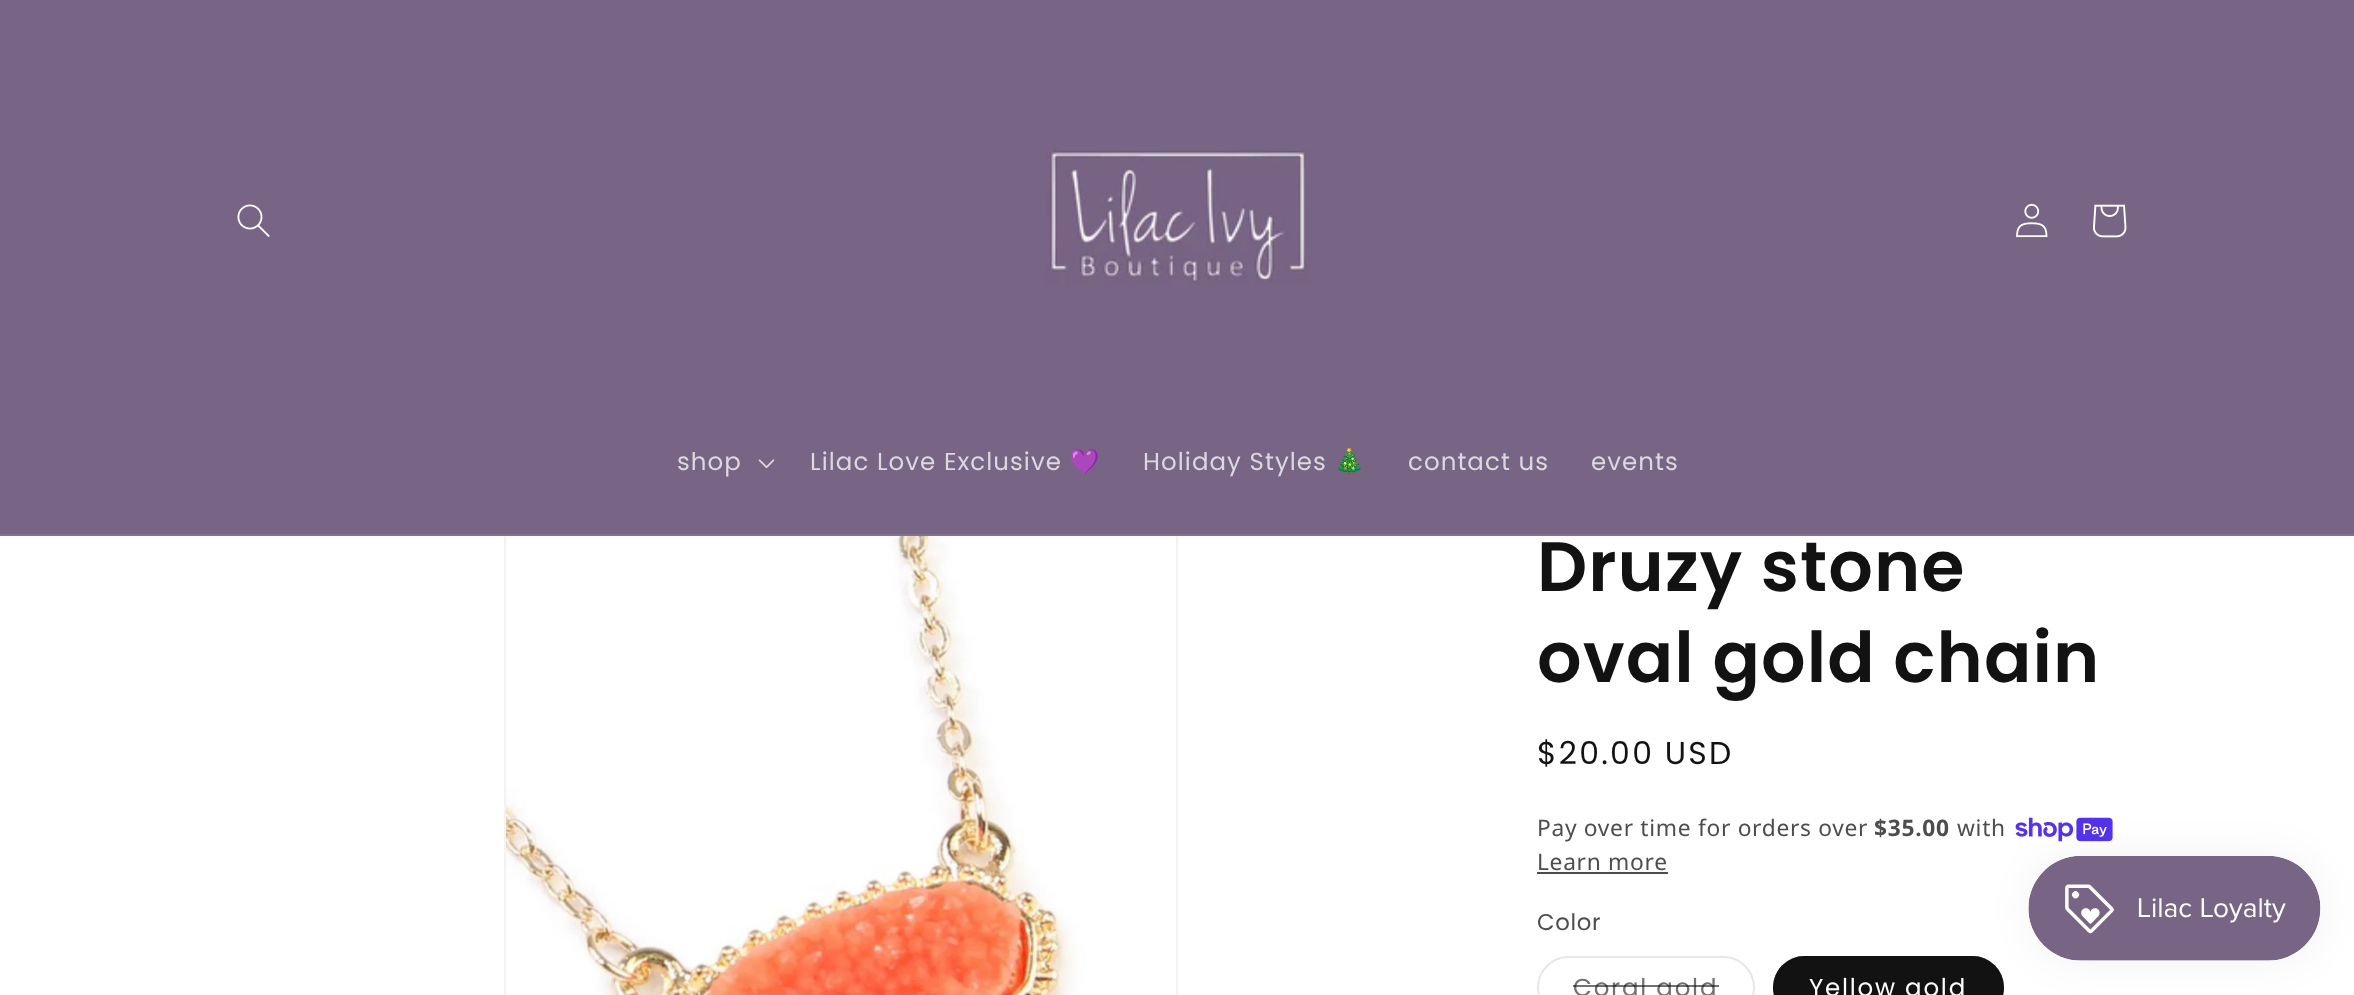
<svg xmlns="http://www.w3.org/2000/svg" width="2354" height="995">
<rect width="100%" height="100%" fill="#fff"/>
<rect x="505" y="500" width="672" height="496" fill="none" stroke="#f3f3f3" stroke-width="2"/>
<rect width="2354" height="534" fill="#786484"/>
<rect y="534" width="2354" height="2" fill="#83708e"/>
<image x="237" y="204" width="33" height="33" href="media/1.png"/>
<image x="1045" y="148" width="265" height="137" href="media/2.png"/>
<image x="2016" y="203" width="32" height="35" href="media/3.png"/>
<image x="2093" y="204" width="34" height="34" href="media/4.png"/>
<text x="677" y="470" style="font-family:Poppins;font-size:24.5px;letter-spacing:1.05px;fill:#ddd8e0">shop</text>
<image x="758" y="459" width="17" height="10" href="media/5.png"/>
<text x="810" y="470" style="font-family:Poppins;font-size:24.5px;letter-spacing:1.05px;fill:#ddd8e0">Lilac Love Exclusive</text>
<text x="1069" y="470" style="font-family:Noto Color Emoji;font-size:24.5px;letter-spacing:1.05px;fill:#ddd8e0">💜</text>
<text x="1143" y="470" style="font-family:Poppins;font-size:24.5px;letter-spacing:1.05px;fill:#ddd8e0">Holiday Styles</text>
<text x="1334" y="470" style="font-family:Noto Color Emoji;font-size:24.5px;letter-spacing:1.05px;fill:#ddd8e0">🎄</text>
<text x="1408" y="470" style="font-family:Poppins;font-size:24.5px;letter-spacing:1.05px;fill:#ddd8e0">contact us</text>
<text x="1591" y="470" style="font-family:Poppins;font-size:24.5px;letter-spacing:1.05px;fill:#ddd8e0">events</text>
<image x="506" y="536" width="627" height="459" href="media/6.png"/>
<text x="1537" y="591" style="font-family:Poppins;font-size:70px;font-weight:600;letter-spacing:1.05px;fill:#121212">Druzy stone</text>
<text x="1537" y="682" style="font-family:Poppins;font-size:70px;font-weight:600;letter-spacing:1.05px;fill:#121212">oval gold chain</text>
<text x="1537" y="764" style="font-family:Poppins;font-size:31.5px;letter-spacing:2.25px;fill:#121212">$20.00 USD</text>
<text x="1537" y="836" style="font-family:Noto Sans;font-size:22.75px;letter-spacing:0.7px;fill:#4d4d4d">Pay over time for orders over</text>
<text x="1874" y="836" style="font-family:Noto Sans;font-size:22.75px;font-weight:bold;letter-spacing:0.7px;fill:#4d4d4d">$35.00</text>
<text x="1957" y="836" style="font-family:Noto Sans;font-size:22.75px;letter-spacing:0.7px;fill:#4d4d4d">with</text>
<image x="2015" y="817" width="98" height="25" href="media/7.png"/>
<text x="1537" y="870" style="font-family:Noto Sans;font-size:22.75px;letter-spacing:0.7px;fill:#4d4d4d">Learn more</text>
<rect x="1537" y="872" width="131" height="2" fill="#4d4d4d"/>
<text x="1537" y="930" style="font-family:Poppins;font-size:22.75px;letter-spacing:0.7px;fill:#4d4d4d">Color</text>
<rect x="1538" y="957" width="216" height="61" rx="30.5" fill="none" stroke="#e7e7e7" stroke-width="2"/>
<text x="1573" y="996" style="font-family:Poppins;font-size:24.5px;letter-spacing:1.75px;fill:#717171">Coral gold</text>
<rect x="1573" y="985" width="146" height="2" fill="#12121299"/>
<rect x="1773" y="956" width="231" height="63" rx="31.5" fill="#121212"/>
<rect x="1774" y="957" width="229" height="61" rx="30.5" fill="none" stroke="#1212128c" stroke-width="2"/>
<text x="1809" y="996" style="font-family:Poppins;font-size:24.5px;letter-spacing:1.75px;fill:#fff">Yellow gold</text>
<rect x="2028" y="856" width="293" height="105" rx="52.5" fill="#0000000d" filter="blur(22px)"/>
<image x="2028" y="856" width="293" height="105" href="media/8.png"/>
</svg>
